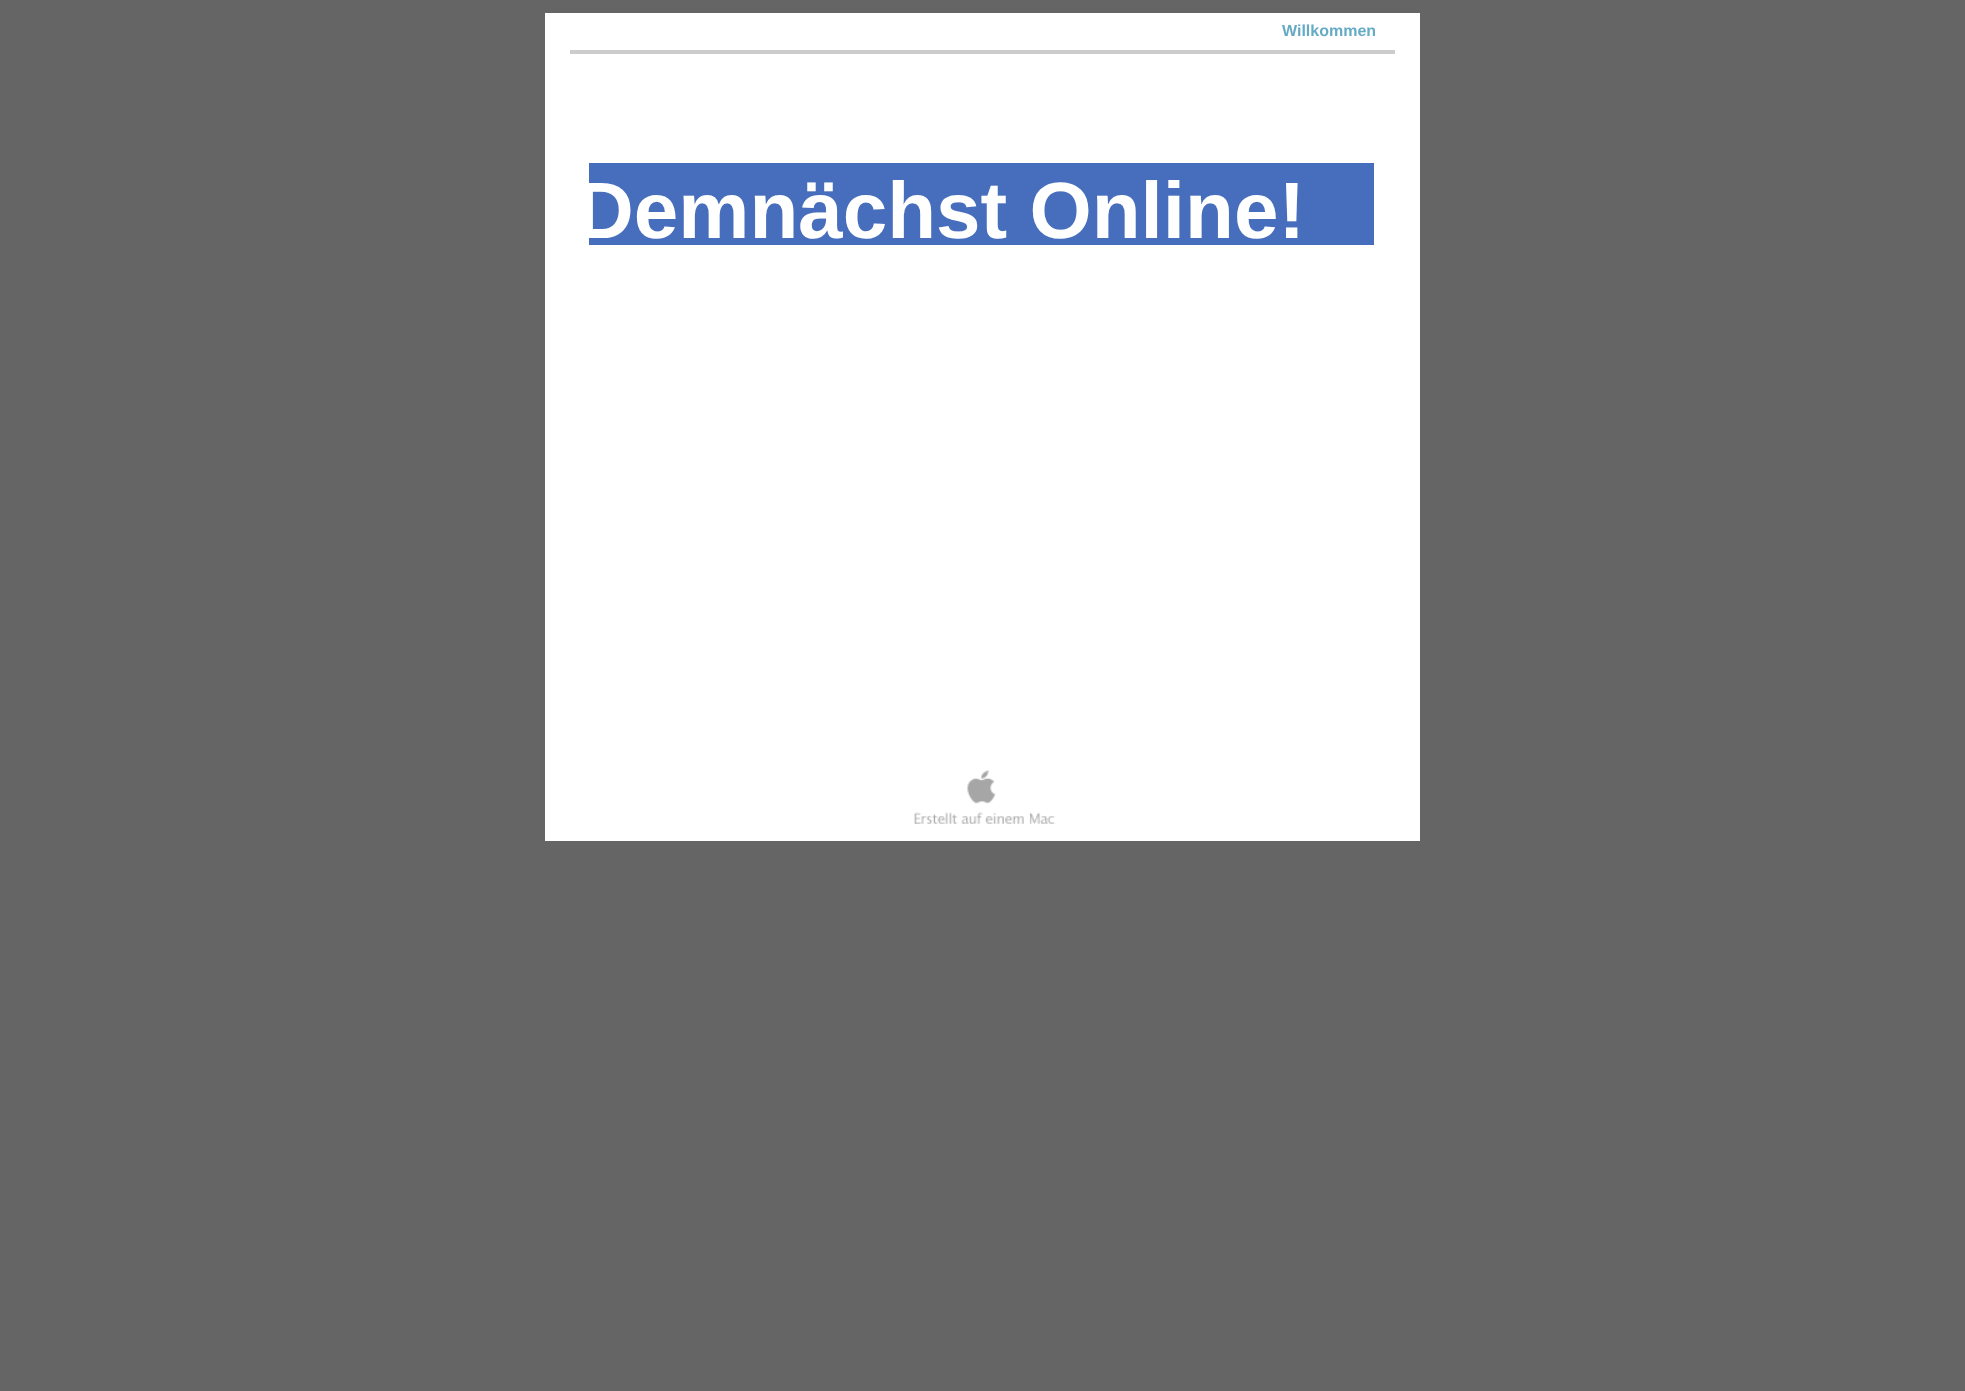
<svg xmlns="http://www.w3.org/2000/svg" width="1965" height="1391">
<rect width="100%" height="100%" fill="#656565"/>
<rect x="545" y="13" width="875" height="828" fill="#fff"/>
<rect x="570" y="50" width="825" height="4" fill="#ccc"/>
<text x="1282" y="36" style="font-family:Liberation Sans;font-size:16px;font-weight:bold;fill:#66abc5">Willkommen</text>
<rect x="589" y="163" width="785" height="82" fill="#476ebc"/>
<text x="576" y="238" style="font-family:Liberation Sans;font-size:80px;font-weight:bold;fill:#fff">Demnächst Online!</text>
<image x="914" y="770" width="141" height="54" href="media/1.png"/>
</svg>
